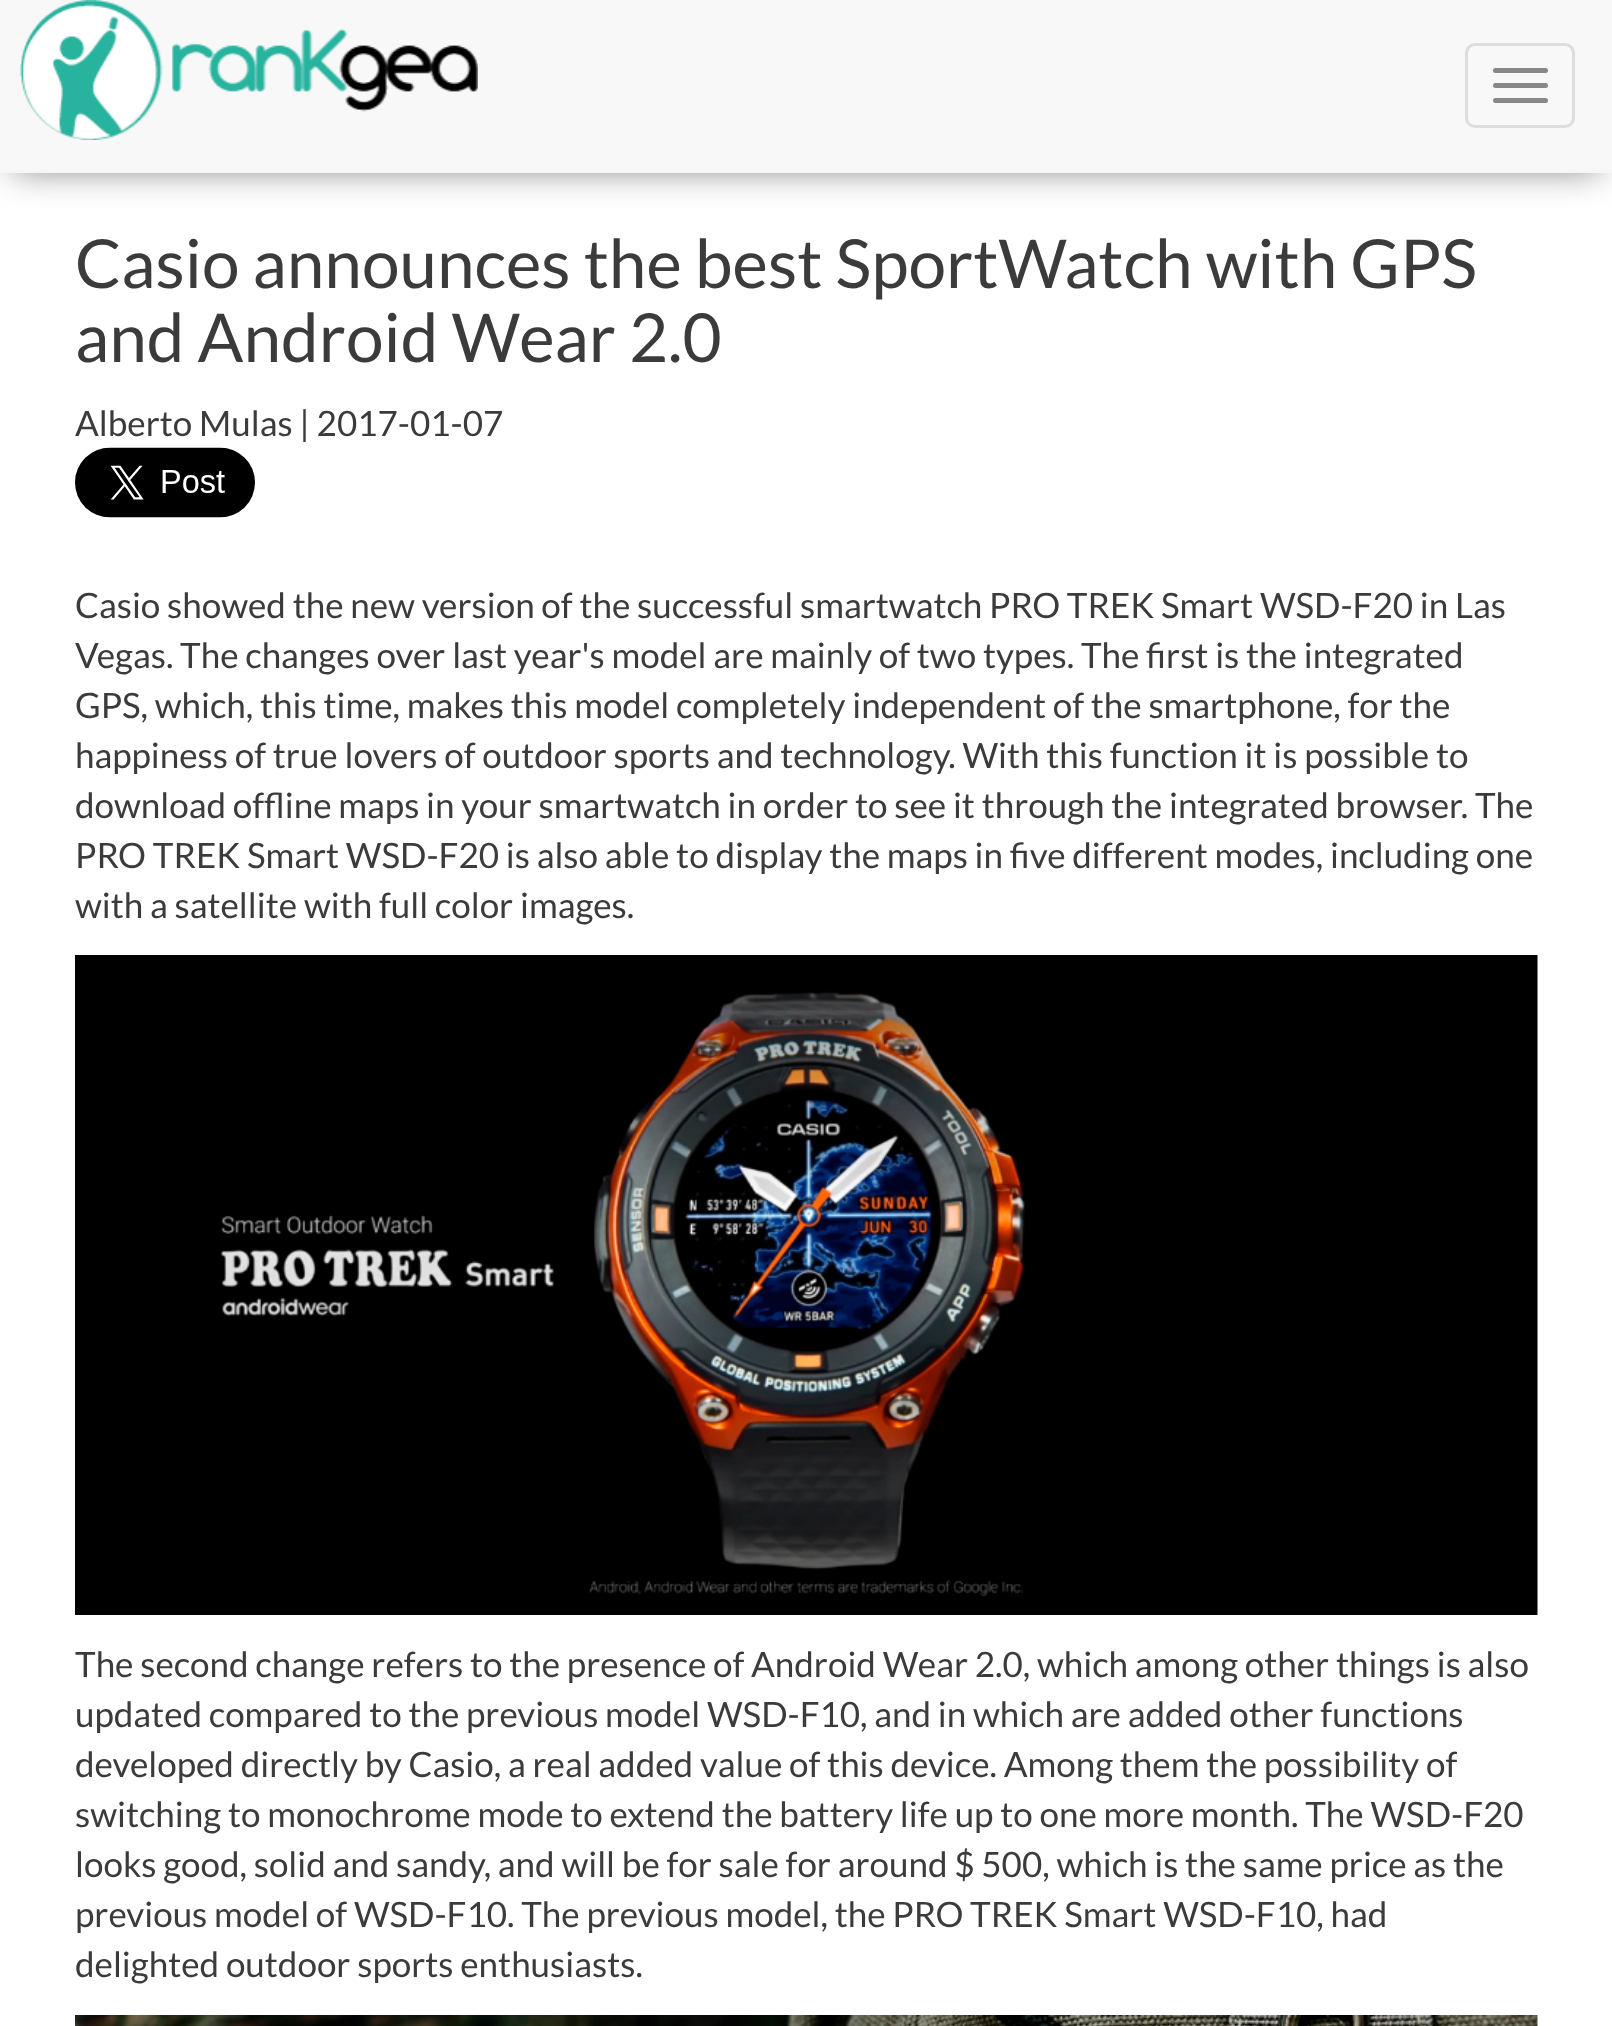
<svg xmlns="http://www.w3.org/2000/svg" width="1612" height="2026">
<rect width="100%" height="100%" fill="#fff"/>
<rect x="13" y="23" width="1587" height="147" fill="#7f7f7f" filter="blur(17.5px)"/>
<rect width="1612" height="170" fill="#f8f8f8"/>
<rect y="170" width="1612" height="3" fill="#f6f6f6"/>
<image x="20" y="0" width="458" height="140" href="media/1.png"/>
<rect x="1466.5" y="44.5" width="107" height="82" rx="8.5" fill="none" stroke="#ddd" stroke-width="3"/>
<rect x="1493" y="68" width="55" height="5" rx="2.5" fill="#888"/>
<rect x="1493" y="83" width="55" height="5" rx="2.5" fill="#888"/>
<rect x="1493" y="98" width="55" height="5" rx="2.5" fill="#888"/>
<text x="75" y="288" style="font-family:Lato;font-size:67.5px;fill:#3b3b3b">Casio announces the best SportWatch with GPS</text>
<text x="75" y="362" style="font-family:Lato;font-size:67.5px;fill:#3b3b3b">and Android Wear 2.0</text>
<text x="75" y="436" style="font-family:Lato;font-size:35px;fill:#3b3b3b">Alberto Mulas | 2017-01-07</text>
<image x="75" y="447" width="180" height="71" href="media/2.png"/>
<text x="75" y="618" style="font-family:Lato;font-size:35px;fill:#3b3b3b">Casio showed the new version of the successful smartwatch PRO TREK Smart WSD-F20 in Las</text>
<text x="75" y="668" style="font-family:Lato;font-size:35px;fill:#3b3b3b">Vegas. The changes over last year's model are mainly of two types. The first is the integrated</text>
<text x="75" y="718" style="font-family:Lato;font-size:35px;fill:#3b3b3b">GPS, which, this time, makes this model completely independent of the smartphone, for the</text>
<text x="75" y="768" style="font-family:Lato;font-size:35px;fill:#3b3b3b">happiness of true lovers of outdoor sports and technology. With this function it is possible to</text>
<text x="75" y="818" style="font-family:Lato;font-size:35px;fill:#3b3b3b">download offline maps in your smartwatch in order to see it through the integrated browser. The</text>
<text x="75" y="868" style="font-family:Lato;font-size:35px;fill:#3b3b3b">PRO TREK Smart WSD-F20 is also able to display the maps in five different modes, including one</text>
<text x="75" y="918" style="font-family:Lato;font-size:35px;fill:#3b3b3b">with a satellite with full color images.</text>
<image x="75" y="955" width="1463" height="660" href="media/3.png"/>
<text x="75" y="1677" style="font-family:Lato;font-size:35px;fill:#3b3b3b">The second change refers to the presence of Android Wear 2.0, which among other things is also</text>
<text x="75" y="1727" style="font-family:Lato;font-size:35px;fill:#3b3b3b">updated compared to the previous model WSD-F10, and in which are added other functions</text>
<text x="75" y="1777" style="font-family:Lato;font-size:35px;fill:#3b3b3b">developed directly by Casio, a real added value of this device. Among them the possibility of</text>
<text x="75" y="1827" style="font-family:Lato;font-size:35px;fill:#3b3b3b">switching to monochrome mode to extend the battery life up to one more month. The WSD-F20</text>
<text x="75" y="1877" style="font-family:Lato;font-size:35px;fill:#3b3b3b">looks good, solid and sandy, and will be for sale for around $ 500, which is the same price as the</text>
<text x="75" y="1927" style="font-family:Lato;font-size:35px;fill:#3b3b3b">previous model of WSD-F10. The previous model, the PRO TREK Smart WSD-F10, had</text>
<text x="75" y="1977" style="font-family:Lato;font-size:35px;fill:#3b3b3b">delighted outdoor sports enthusiasts.</text>
<image x="75" y="2015" width="1463" height="11" href="media/4.png"/>
</svg>
